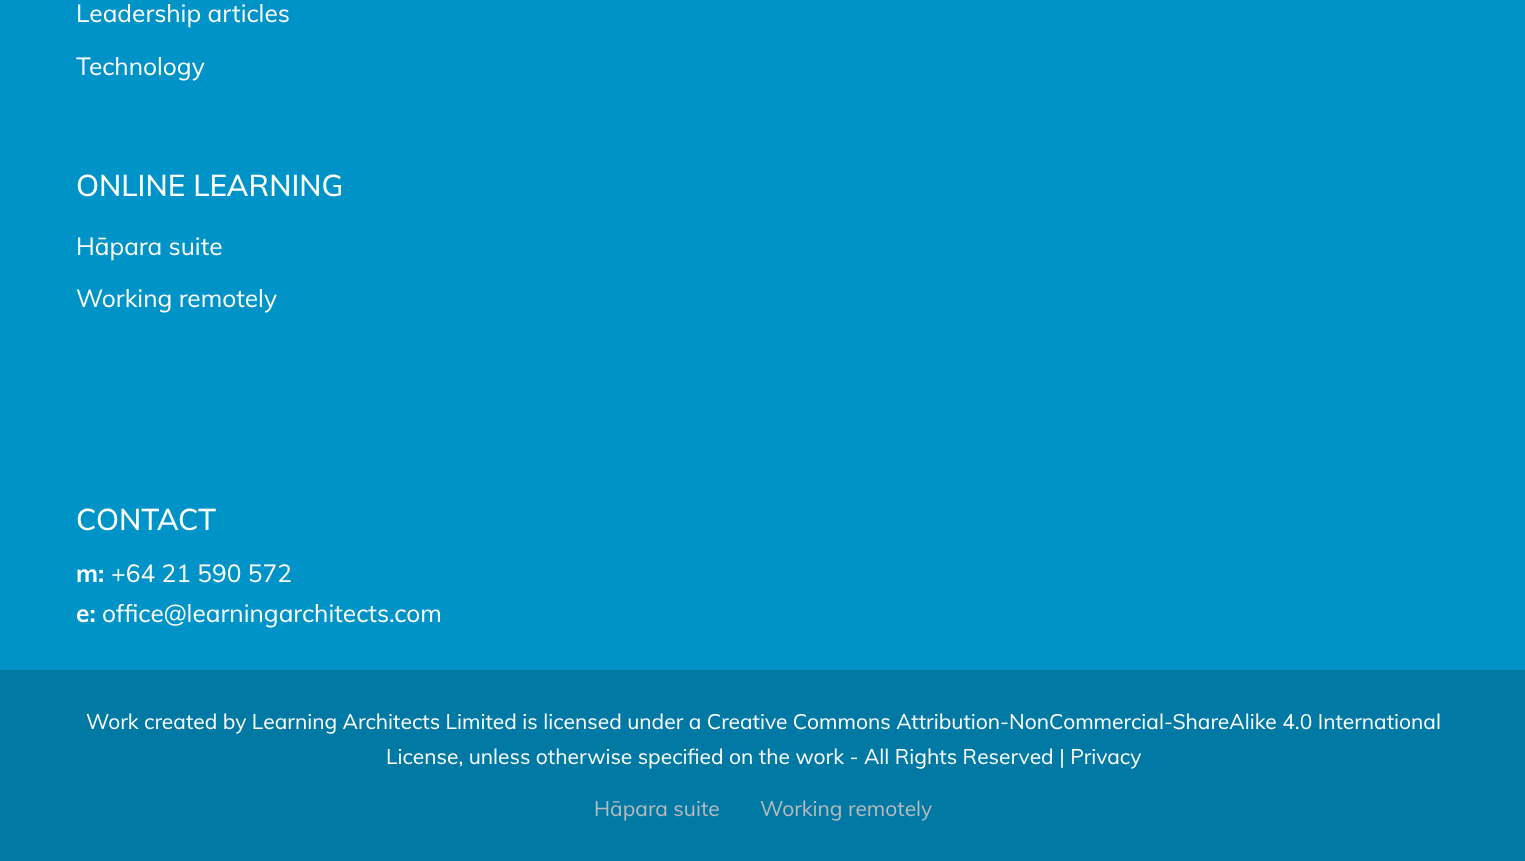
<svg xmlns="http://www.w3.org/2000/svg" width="1525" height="861">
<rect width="100%" height="100%" fill="#0093c8"/>
<text x="76" y="22" style="font-family:Muli;font-size:24.5px;fill:#fff">Leadership articles</text>
<text x="76" y="75" style="font-family:Muli;font-size:24.5px;fill:#fff">Technology</text>
<text x="76" y="196" style="font-family:Muli;font-size:29.75px;font-weight:500;fill:#fff">ONLINE LEARNING</text>
<text x="76" y="255" style="font-family:Muli;font-size:24.5px;fill:#fff">Hāpara suite</text>
<text x="76" y="307" style="font-family:Muli;font-size:24.5px;fill:#fff">Working remotely</text>
<text x="76" y="530" style="font-family:Muli;font-size:29.75px;font-weight:500;fill:#fff">CONTACT</text>
<text x="76" y="582" style="font-family:Muli;font-size:24.5px;font-weight:bold;fill:#fff">m:</text>
<text x="111" y="582" style="font-family:Muli;font-size:24.5px;fill:#fff">+64 21 590 572</text>
<text x="76" y="622" style="font-family:Muli;font-size:24.5px;font-weight:bold;fill:#fff">e:</text>
<text x="102" y="622" style="font-family:Muli;font-size:24.5px;fill:#fff">office@learningarchitects.com</text>
<rect y="670" width="1525" height="191" fill="#0079a5"/>
<text x="86" y="729" style="font-family:Muli;font-size:21px;fill:#fff">Work created by Learning Architects Limited is licensed under a Creative Commons Attribution-NonCommercial-ShareAlike 4.0 International</text>
<text x="386" y="764" style="font-family:Muli;font-size:21px;fill:#fff">License, unless otherwise specified on the work - All Rights Reserved | Privacy</text>
<text x="594" y="816" style="font-family:Muli;font-size:21px;fill:#bbb">Hāpara suite</text>
<text x="760" y="816" style="font-family:Muli;font-size:21px;fill:#bbb">Working remotely</text>
</svg>
